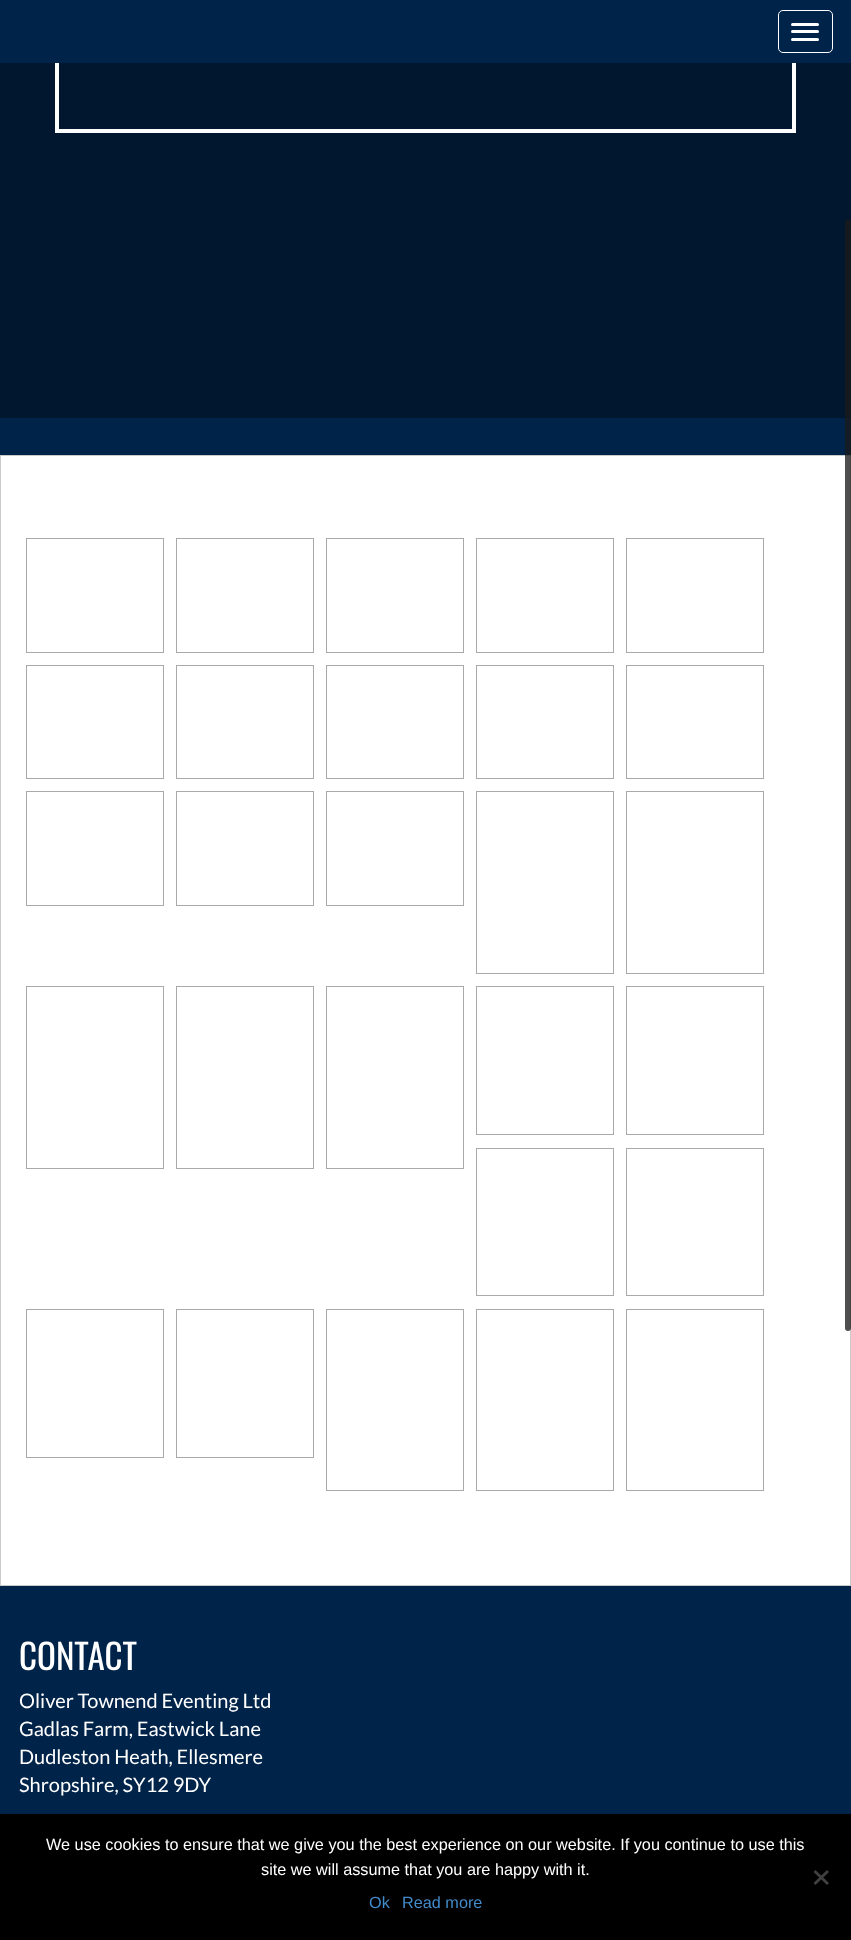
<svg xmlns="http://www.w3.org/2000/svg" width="851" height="1940">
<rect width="100%" height="100%" fill="#002349"/>
<rect y="63" width="851" height="355" fill="#00172f"/>
<rect x="57" y="-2" width="737" height="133" fill="none" stroke="#fff" stroke-width="4"/>
<rect x="55" width="741" height="63" fill="#002349"/>
<rect x="778.5" y="10.5" width="54" height="42" rx="4.5" fill="none" stroke="#fff"/>
<rect x="791" y="23" width="28" height="3" rx="1.5" fill="#fff"/>
<rect x="791" y="30" width="28" height="3" rx="1.5" fill="#fff"/>
<rect x="791" y="38" width="28" height="3" rx="1.5" fill="#fff"/>
<rect x="0.5" y="455.5" width="850" height="1130" fill="#fff" stroke="#cacaca"/>
<rect x="845" y="219" width="6" height="1112" rx="3" fill="#1a1a1ac4"/>
<rect x="26.5" y="538.5" width="137" height="114" fill="none" stroke="#a9a9a9"/>
<rect x="176.5" y="538.5" width="137" height="114" fill="none" stroke="#a9a9a9"/>
<rect x="326.5" y="538.5" width="137" height="114" fill="none" stroke="#a9a9a9"/>
<rect x="476.5" y="538.5" width="137" height="114" fill="none" stroke="#a9a9a9"/>
<rect x="626.5" y="538.5" width="137" height="114" fill="none" stroke="#a9a9a9"/>
<rect x="26.5" y="665.5" width="137" height="113" fill="none" stroke="#a9a9a9"/>
<rect x="176.5" y="665.5" width="137" height="113" fill="none" stroke="#a9a9a9"/>
<rect x="326.5" y="665.5" width="137" height="113" fill="none" stroke="#a9a9a9"/>
<rect x="476.5" y="665.5" width="137" height="113" fill="none" stroke="#a9a9a9"/>
<rect x="626.5" y="665.5" width="137" height="113" fill="none" stroke="#a9a9a9"/>
<rect x="26.5" y="791.5" width="137" height="114" fill="none" stroke="#a9a9a9"/>
<rect x="176.5" y="791.5" width="137" height="114" fill="none" stroke="#a9a9a9"/>
<rect x="326.5" y="791.5" width="137" height="114" fill="none" stroke="#a9a9a9"/>
<rect x="476.5" y="791.5" width="137" height="182" fill="none" stroke="#a9a9a9"/>
<rect x="626.5" y="791.5" width="137" height="182" fill="none" stroke="#a9a9a9"/>
<rect x="26.5" y="986.5" width="137" height="182" fill="none" stroke="#a9a9a9"/>
<rect x="176.5" y="986.5" width="137" height="182" fill="none" stroke="#a9a9a9"/>
<rect x="326.5" y="986.5" width="137" height="182" fill="none" stroke="#a9a9a9"/>
<rect x="476.5" y="986.5" width="137" height="148" fill="none" stroke="#a9a9a9"/>
<rect x="626.5" y="986.5" width="137" height="148" fill="none" stroke="#a9a9a9"/>
<rect x="476.5" y="1148.5" width="137" height="147" fill="none" stroke="#a9a9a9"/>
<rect x="626.5" y="1148.5" width="137" height="147" fill="none" stroke="#a9a9a9"/>
<rect x="26.5" y="1309.5" width="137" height="148" fill="none" stroke="#a9a9a9"/>
<rect x="176.5" y="1309.5" width="137" height="148" fill="none" stroke="#a9a9a9"/>
<rect x="326.5" y="1309.5" width="137" height="181" fill="none" stroke="#a9a9a9"/>
<rect x="476.5" y="1309.5" width="137" height="181" fill="none" stroke="#a9a9a9"/>
<rect x="626.5" y="1309.5" width="137" height="181" fill="none" stroke="#a9a9a9"/>
<text x="19" y="1670" style="font-family:Oswald;font-size:35px;fill:#fff">CONTACT</text>
<text x="19" y="1708" style="font-family:Lato;font-size:20px;fill:#fff">Oliver Townend Eventing Ltd</text>
<text x="19" y="1736" style="font-family:Lato;font-size:20px;fill:#fff">Gadlas Farm, Eastwick Lane</text>
<text x="19" y="1764" style="font-family:Lato;font-size:20px;fill:#fff">Dudleston Heath, Ellesmere</text>
<text x="19" y="1792" style="font-family:Lato;font-size:20px;fill:#fff">Shropshire, SY12 9DY</text>
<rect y="1814" width="851" height="126" fill="#000"/>
<text x="46" y="1850" style="font-family:Liberation Sans;font-size:16.25px;fill:#fff">We use cookies to ensure that we give you the best experience on our website. If you continue to use this</text>
<text x="261" y="1875" style="font-family:Liberation Sans;font-size:16.25px;fill:#fff">site we will assume that you are happy with it.</text>
<path d="M827 1870l2 2l-13.5 13l-2-2z" fill="#404040"/>
<path d="M813.5 1872l2-2l13.5 13l-2 2z" fill="#404040"/>
<text x="369" y="1908" style="font-family:Liberation Sans;font-size:16.25px;fill:#428bca">Ok</text>
<text x="402" y="1908" style="font-family:Liberation Sans;font-size:16.25px;fill:#428bca">Read more</text>
</svg>
